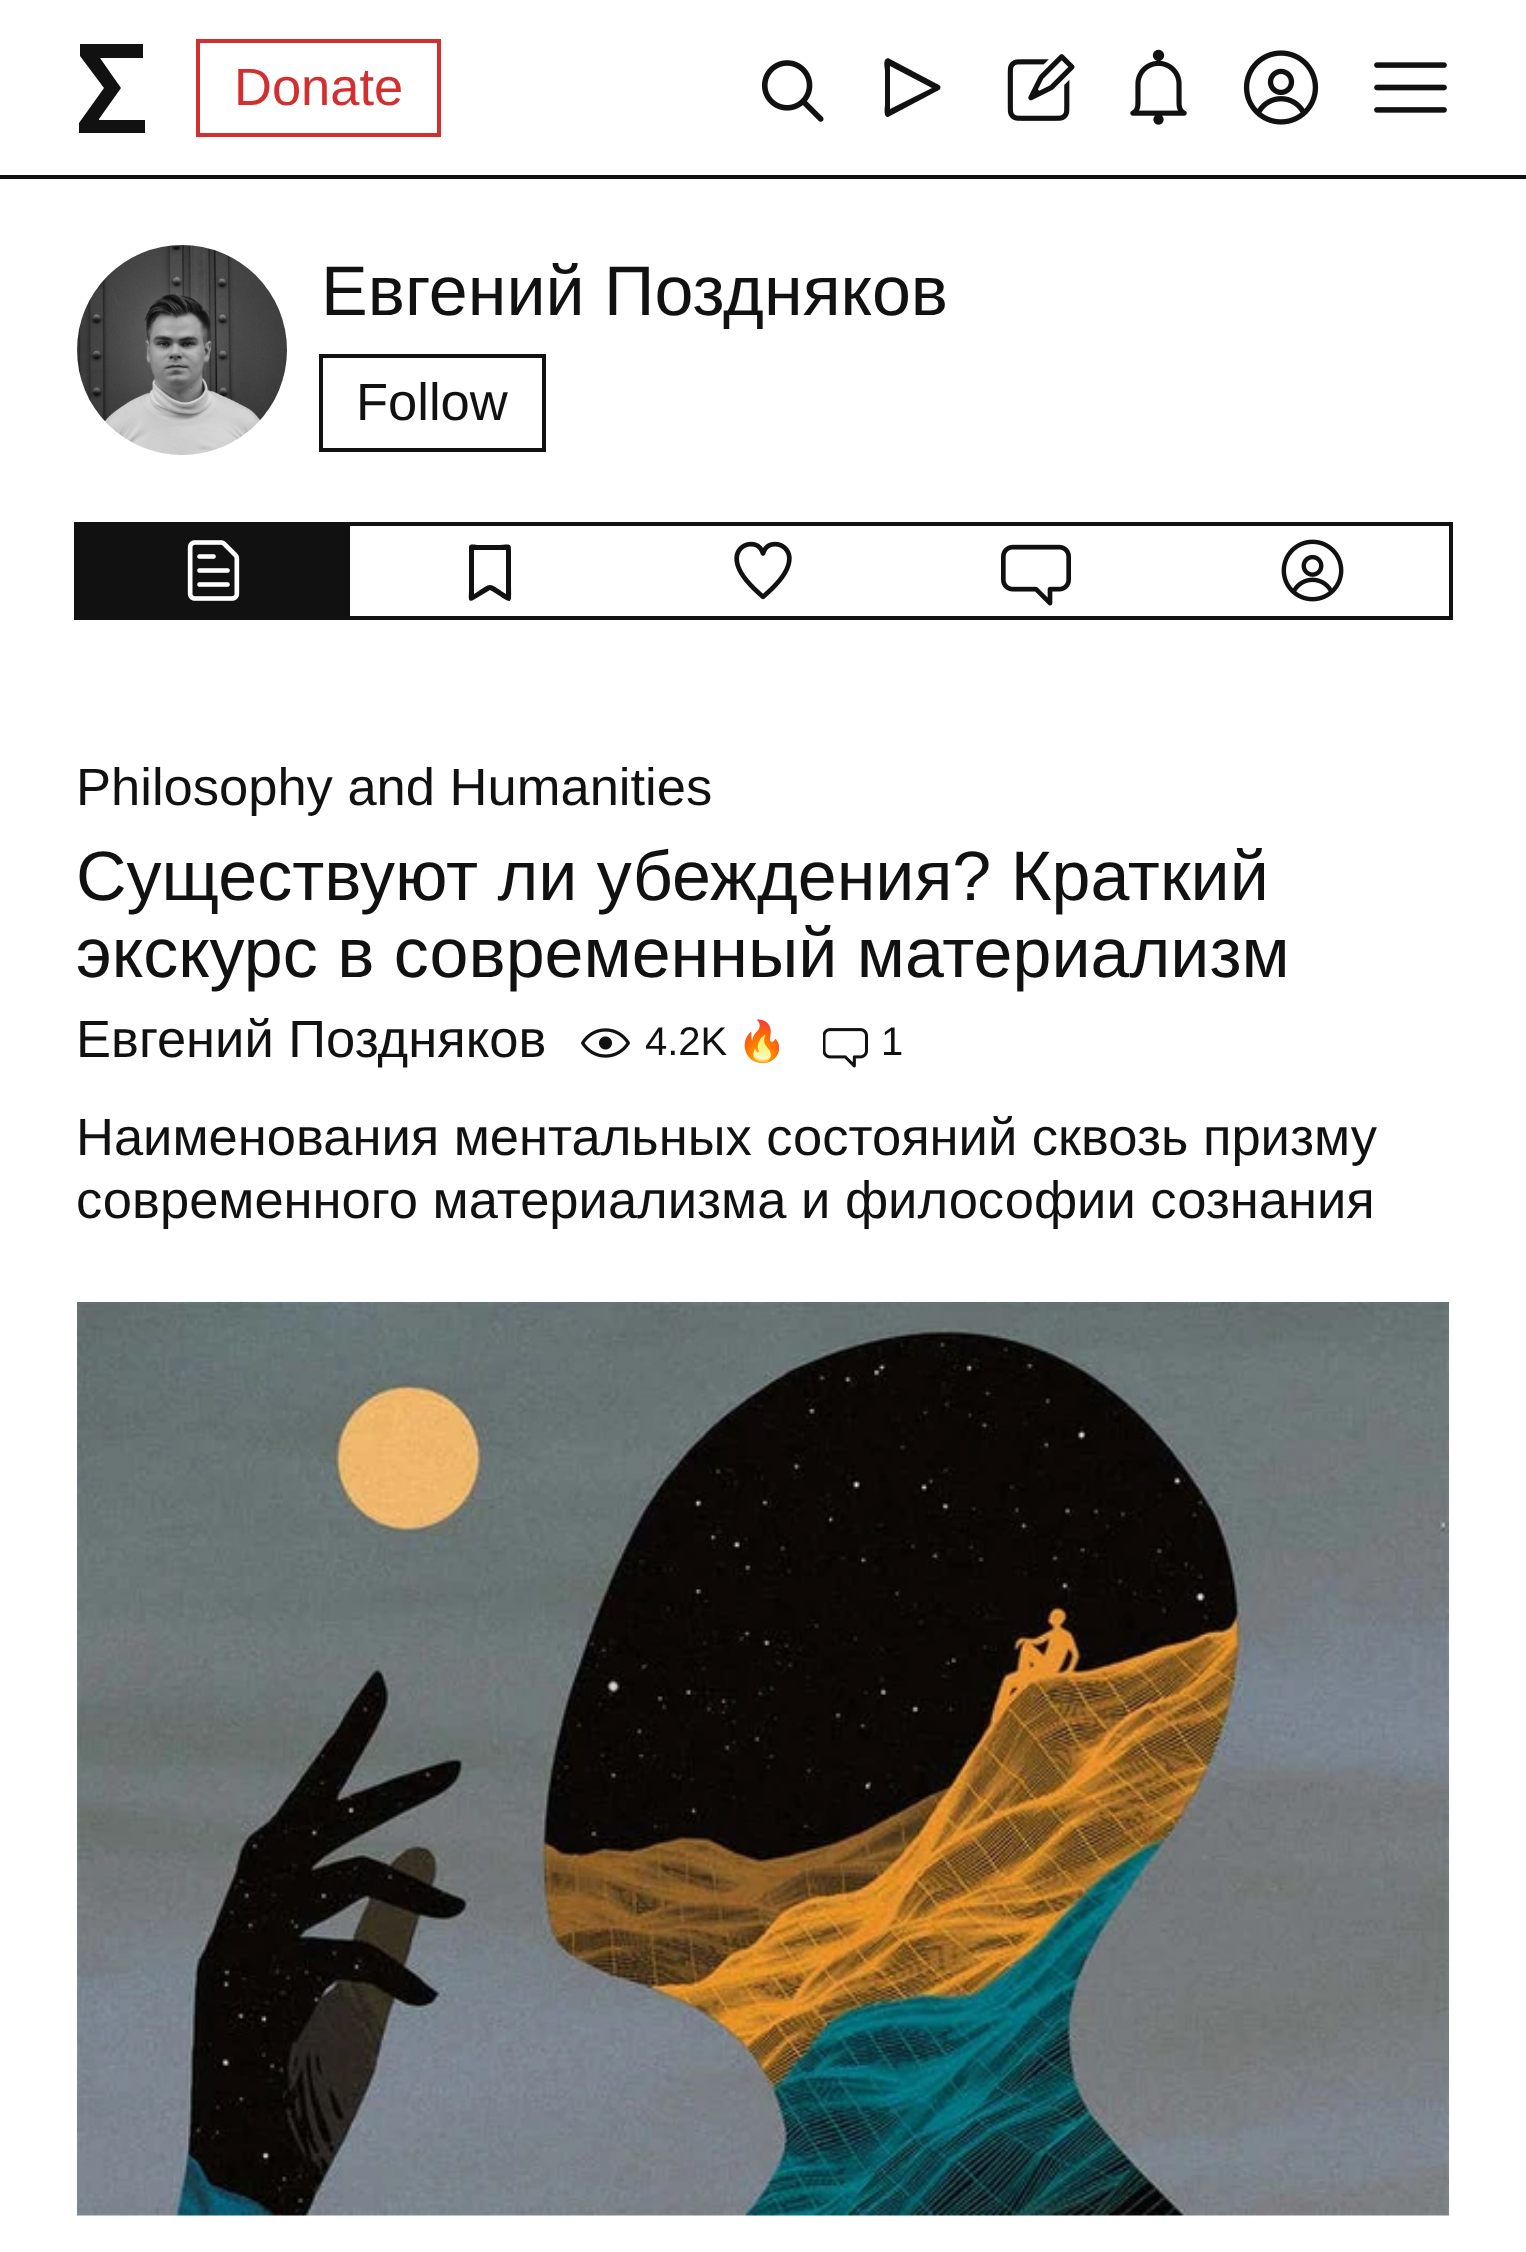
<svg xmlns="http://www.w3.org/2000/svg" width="1526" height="2252">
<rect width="100%" height="100%" fill="#fff"/>
<rect y="175" width="1526" height="4" fill="#111"/>
<path d="M99 119v1h46v13h-66v-10l25-35l-24-32v-12h63v14h-43l21 30z" fill="#111" fill-rule="evenodd"/>
<rect x="198" y="41" width="241" height="94" fill="none" stroke="#d23030" stroke-width="4"/>
<text x="234" y="105" style="font-family:Liberation Sans;font-size:52.5px;fill:#d23030">Donate</text>
<image x="761" y="60" width="63" height="62" href="media/1.png"/>
<path d="M886 59l2-1l51 27c2 1 2 4 0 5l-51 27c-5 1-3-11-3-12v-35c0 0-2-10 1-11zm4 7v43l42-21z" fill="#111" fill-rule="evenodd"/>
<image x="1007" y="54" width="68" height="67" href="media/2.png"/>
<image x="1130" y="49" width="57" height="76" href="media/3.png"/>
<image x="1243" y="50" width="76" height="75" href="media/4.png"/>
<image x="1374" y="62" width="73" height="51" href="media/5.png"/>
<image x="77" y="245" width="210" height="210" href="media/6.png"/>
<text x="321" y="315" style="font-family:Liberation Sans;font-size:70px;fill:#111">Евгений Поздняков</text>
<rect x="321" y="356" width="223" height="94" fill="none" stroke="#111" stroke-width="4"/>
<text x="356" y="420" style="font-family:Liberation Sans;font-size:52.5px;fill:#111">Follow</text>
<rect x="76" y="524" width="1375" height="94" fill="none" stroke="#111" stroke-width="4"/>
<rect x="78" y="526" width="272" height="90" fill="#111"/>
<image x="187" y="540" width="53" height="61" href="media/7.png"/>
<path d="M469 547c0-4 7-2 9-2h18c16 0 15-4 15 11v25c0 27 3 23-21 9l-15 9c-8 5-6-1-6-9zm5 3v44c19-12 13-12 32 0v-44z" fill="#111" fill-rule="evenodd"/>
<image x="734" y="541" width="58" height="59" href="media/8.png"/>
<image x="1001" y="544" width="70" height="62" href="media/9.png"/>
<image x="1281" y="539" width="63" height="63" href="media/10.png"/>
<text x="76" y="805" style="font-family:Liberation Sans;font-size:52.5px;fill:#111">Philosophy and Humanities</text>
<text x="76" y="900" style="font-family:Liberation Sans;font-size:70px;fill:#111">Существуют ли убеждения? Краткий</text>
<text x="76" y="977" style="font-family:Liberation Sans;font-size:70px;fill:#111">экскурс в современный материализм</text>
<text x="76" y="1057" style="font-family:Liberation Sans;font-size:52.5px;fill:#111">Евгений Поздняков</text>
<image x="581" y="1028" width="49" height="30" href="media/11.png"/>
<text x="645" y="1055" style="font-family:Liberation Sans;font-size:40px;fill:#111">4.2K</text>
<text x="737" y="1055" style="font-family:Noto Color Emoji;font-size:40px;fill:#111">🔥</text>
<image x="823" y="1028" width="45" height="40" href="media/12.png"/>
<text x="881" y="1055" style="font-family:Liberation Sans;font-size:40px;fill:#111">1</text>
<text x="76" y="1155" style="font-family:Liberation Sans;font-size:52.5px;fill:#111">Наименования ментальных состояний сквозь призму</text>
<text x="76" y="1218" style="font-family:Liberation Sans;font-size:52.5px;fill:#111">современного материализма и философии сознания</text>
<image x="77" y="1302" width="1372" height="914" href="media/13.png"/>
</svg>
